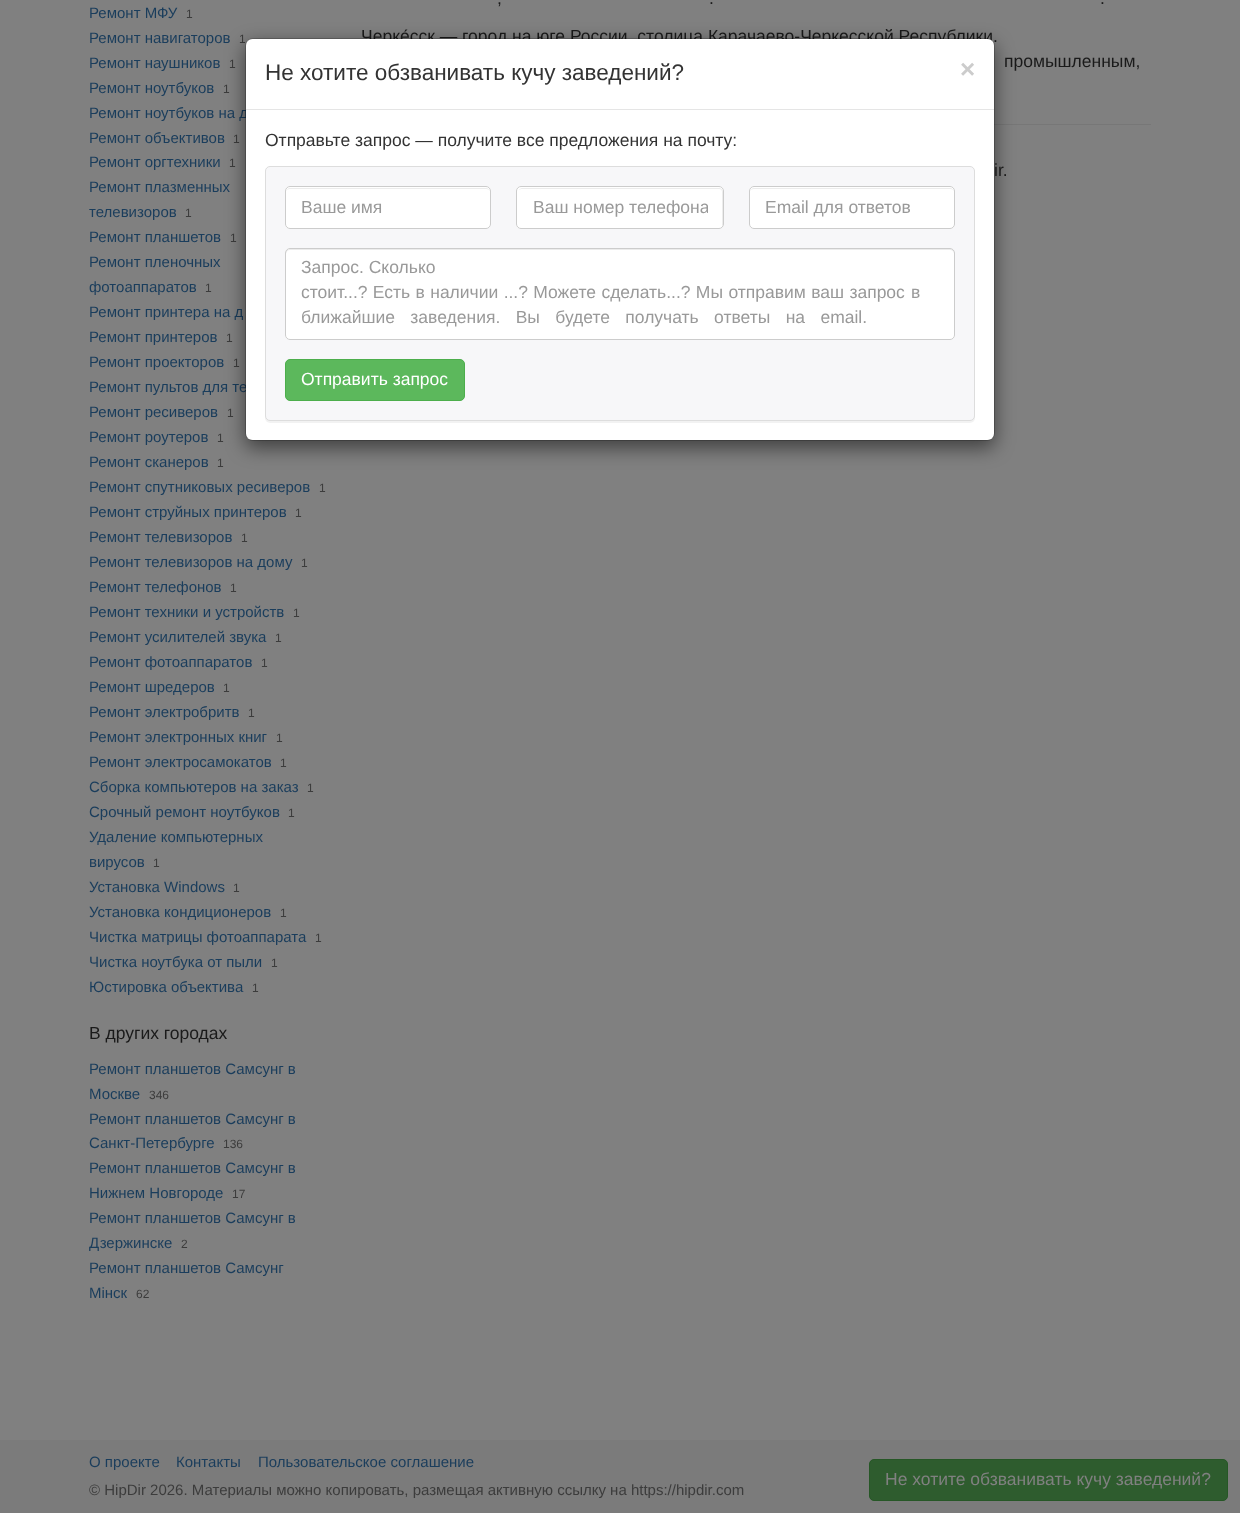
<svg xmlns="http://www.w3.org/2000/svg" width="1240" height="1513">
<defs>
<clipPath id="clip1"><rect x="533" y="198" width="175" height="20"/></clipPath>
</defs>
<rect width="100%" height="100%" fill="#808080"/>
<text x="89" y="18" style="font-family:Liberation Sans;font-size:15px;fill:#1a3d5c">Ремонт МФУ</text>
<text x="186" y="18" style="font-family:Liberation Sans;font-size:12px;fill:#3c3c3c">1</text>
<text x="89" y="43" style="font-family:Liberation Sans;font-size:15px;fill:#1a3d5c">Ремонт навигаторов</text>
<text x="239" y="43" style="font-family:Liberation Sans;font-size:12px;fill:#3c3c3c">1</text>
<text x="89" y="68" style="font-family:Liberation Sans;font-size:15px;fill:#1a3d5c">Ремонт наушников</text>
<text x="229" y="68" style="font-family:Liberation Sans;font-size:12px;fill:#3c3c3c">1</text>
<text x="89" y="93" style="font-family:Liberation Sans;font-size:15px;fill:#1a3d5c">Ремонт ноутбуков</text>
<text x="223" y="93" style="font-family:Liberation Sans;font-size:12px;fill:#3c3c3c">1</text>
<text x="89" y="118" style="font-family:Liberation Sans;font-size:15px;fill:#1a3d5c">Ремонт ноутбуков на д</text>
<text x="89" y="143" style="font-family:Liberation Sans;font-size:15px;fill:#1a3d5c">Ремонт объективов</text>
<text x="233" y="143" style="font-family:Liberation Sans;font-size:12px;fill:#3c3c3c">1</text>
<text x="89" y="167" style="font-family:Liberation Sans;font-size:15px;fill:#1a3d5c">Ремонт оргтехники</text>
<text x="229" y="167" style="font-family:Liberation Sans;font-size:12px;fill:#3c3c3c">1</text>
<text x="89" y="192" style="font-family:Liberation Sans;font-size:15px;fill:#1a3d5c">Ремонт плазменных</text>
<text x="89" y="217" style="font-family:Liberation Sans;font-size:15px;fill:#1a3d5c">телевизоров</text>
<text x="185" y="217" style="font-family:Liberation Sans;font-size:12px;fill:#3c3c3c">1</text>
<text x="89" y="242" style="font-family:Liberation Sans;font-size:15px;fill:#1a3d5c">Ремонт планшетов</text>
<text x="230" y="242" style="font-family:Liberation Sans;font-size:12px;fill:#3c3c3c">1</text>
<text x="89" y="267" style="font-family:Liberation Sans;font-size:15px;fill:#1a3d5c">Ремонт пленочных</text>
<text x="89" y="292" style="font-family:Liberation Sans;font-size:15px;fill:#1a3d5c">фотоаппаратов</text>
<text x="205" y="292" style="font-family:Liberation Sans;font-size:12px;fill:#3c3c3c">1</text>
<text x="89" y="317" style="font-family:Liberation Sans;font-size:15px;fill:#1a3d5c">Ремонт принтера на д</text>
<text x="89" y="342" style="font-family:Liberation Sans;font-size:15px;fill:#1a3d5c">Ремонт принтеров</text>
<text x="226" y="342" style="font-family:Liberation Sans;font-size:12px;fill:#3c3c3c">1</text>
<text x="89" y="367" style="font-family:Liberation Sans;font-size:15px;fill:#1a3d5c">Ремонт проекторов</text>
<text x="233" y="367" style="font-family:Liberation Sans;font-size:12px;fill:#3c3c3c">1</text>
<text x="89" y="392" style="font-family:Liberation Sans;font-size:15px;fill:#1a3d5c">Ремонт пультов для те</text>
<text x="89" y="417" style="font-family:Liberation Sans;font-size:15px;fill:#1a3d5c">Ремонт ресиверов</text>
<text x="227" y="417" style="font-family:Liberation Sans;font-size:12px;fill:#3c3c3c">1</text>
<text x="89" y="442" style="font-family:Liberation Sans;font-size:15px;fill:#1a3d5c">Ремонт роутеров</text>
<text x="217" y="442" style="font-family:Liberation Sans;font-size:12px;fill:#3c3c3c">1</text>
<text x="89" y="467" style="font-family:Liberation Sans;font-size:15px;fill:#1a3d5c">Ремонт сканеров</text>
<text x="217" y="467" style="font-family:Liberation Sans;font-size:12px;fill:#3c3c3c">1</text>
<text x="89" y="492" style="font-family:Liberation Sans;font-size:15px;fill:#1a3d5c">Ремонт спутниковых ресиверов</text>
<text x="319" y="492" style="font-family:Liberation Sans;font-size:12px;fill:#3c3c3c">1</text>
<text x="89" y="517" style="font-family:Liberation Sans;font-size:15px;fill:#1a3d5c">Ремонт струйных принтеров</text>
<text x="295" y="517" style="font-family:Liberation Sans;font-size:12px;fill:#3c3c3c">1</text>
<text x="89" y="542" style="font-family:Liberation Sans;font-size:15px;fill:#1a3d5c">Ремонт телевизоров</text>
<text x="241" y="542" style="font-family:Liberation Sans;font-size:12px;fill:#3c3c3c">1</text>
<text x="89" y="567" style="font-family:Liberation Sans;font-size:15px;fill:#1a3d5c">Ремонт телевизоров на дому</text>
<text x="301" y="567" style="font-family:Liberation Sans;font-size:12px;fill:#3c3c3c">1</text>
<text x="89" y="592" style="font-family:Liberation Sans;font-size:15px;fill:#1a3d5c">Ремонт телефонов</text>
<text x="230" y="592" style="font-family:Liberation Sans;font-size:12px;fill:#3c3c3c">1</text>
<text x="89" y="617" style="font-family:Liberation Sans;font-size:15px;fill:#1a3d5c">Ремонт техники и устройств</text>
<text x="293" y="617" style="font-family:Liberation Sans;font-size:12px;fill:#3c3c3c">1</text>
<text x="89" y="642" style="font-family:Liberation Sans;font-size:15px;fill:#1a3d5c">Ремонт усилителей звука</text>
<text x="275" y="642" style="font-family:Liberation Sans;font-size:12px;fill:#3c3c3c">1</text>
<text x="89" y="667" style="font-family:Liberation Sans;font-size:15px;fill:#1a3d5c">Ремонт фотоаппаратов</text>
<text x="261" y="667" style="font-family:Liberation Sans;font-size:12px;fill:#3c3c3c">1</text>
<text x="89" y="692" style="font-family:Liberation Sans;font-size:15px;fill:#1a3d5c">Ремонт шредеров</text>
<text x="223" y="692" style="font-family:Liberation Sans;font-size:12px;fill:#3c3c3c">1</text>
<text x="89" y="717" style="font-family:Liberation Sans;font-size:15px;fill:#1a3d5c">Ремонт электробритв</text>
<text x="248" y="717" style="font-family:Liberation Sans;font-size:12px;fill:#3c3c3c">1</text>
<text x="89" y="742" style="font-family:Liberation Sans;font-size:15px;fill:#1a3d5c">Ремонт электронных книг</text>
<text x="276" y="742" style="font-family:Liberation Sans;font-size:12px;fill:#3c3c3c">1</text>
<text x="89" y="767" style="font-family:Liberation Sans;font-size:15px;fill:#1a3d5c">Ремонт электросамокатов</text>
<text x="280" y="767" style="font-family:Liberation Sans;font-size:12px;fill:#3c3c3c">1</text>
<text x="89" y="792" style="font-family:Liberation Sans;font-size:15px;fill:#1a3d5c">Сборка компьютеров на заказ</text>
<text x="307" y="792" style="font-family:Liberation Sans;font-size:12px;fill:#3c3c3c">1</text>
<text x="89" y="817" style="font-family:Liberation Sans;font-size:15px;fill:#1a3d5c">Срочный ремонт ноутбуков</text>
<text x="288" y="817" style="font-family:Liberation Sans;font-size:12px;fill:#3c3c3c">1</text>
<text x="89" y="842" style="font-family:Liberation Sans;font-size:15px;fill:#1a3d5c">Удаление компьютерных</text>
<text x="89" y="867" style="font-family:Liberation Sans;font-size:15px;fill:#1a3d5c">вирусов</text>
<text x="153" y="867" style="font-family:Liberation Sans;font-size:12px;fill:#3c3c3c">1</text>
<text x="89" y="892" style="font-family:Liberation Sans;font-size:15px;fill:#1a3d5c">Установка Windows</text>
<text x="233" y="892" style="font-family:Liberation Sans;font-size:12px;fill:#3c3c3c">1</text>
<text x="89" y="917" style="font-family:Liberation Sans;font-size:15px;fill:#1a3d5c">Установка кондиционеров</text>
<text x="280" y="917" style="font-family:Liberation Sans;font-size:12px;fill:#3c3c3c">1</text>
<text x="89" y="942" style="font-family:Liberation Sans;font-size:15px;fill:#1a3d5c">Чистка матрицы фотоаппарата</text>
<text x="315" y="942" style="font-family:Liberation Sans;font-size:12px;fill:#3c3c3c">1</text>
<text x="89" y="967" style="font-family:Liberation Sans;font-size:15px;fill:#1a3d5c">Чистка ноутбука от пыли</text>
<text x="271" y="967" style="font-family:Liberation Sans;font-size:12px;fill:#3c3c3c">1</text>
<text x="89" y="992" style="font-family:Liberation Sans;font-size:15px;fill:#1a3d5c">Юстировка объектива</text>
<text x="252" y="992" style="font-family:Liberation Sans;font-size:12px;fill:#3c3c3c">1</text>
<text x="89" y="1039" style="font-family:Liberation Sans;font-size:17.5px;fill:#1a1a1a">В других городах</text>
<text x="89" y="1074" style="font-family:Liberation Sans;font-size:15px;fill:#1a3d5c">Ремонт планшетов Самсунг в</text>
<text x="89" y="1099" style="font-family:Liberation Sans;font-size:15px;fill:#1a3d5c">Москве</text>
<text x="149" y="1099" style="font-family:Liberation Sans;font-size:12px;fill:#3c3c3c">346</text>
<text x="89" y="1124" style="font-family:Liberation Sans;font-size:15px;fill:#1a3d5c">Ремонт планшетов Самсунг в</text>
<text x="89" y="1148" style="font-family:Liberation Sans;font-size:15px;fill:#1a3d5c">Санкт-Петербурге</text>
<text x="223" y="1148" style="font-family:Liberation Sans;font-size:12px;fill:#3c3c3c">136</text>
<text x="89" y="1173" style="font-family:Liberation Sans;font-size:15px;fill:#1a3d5c">Ремонт планшетов Самсунг в</text>
<text x="89" y="1198" style="font-family:Liberation Sans;font-size:15px;fill:#1a3d5c">Нижнем Новгороде</text>
<text x="232" y="1198" style="font-family:Liberation Sans;font-size:12px;fill:#3c3c3c">17</text>
<text x="89" y="1223" style="font-family:Liberation Sans;font-size:15px;fill:#1a3d5c">Ремонт планшетов Самсунг в</text>
<text x="89" y="1248" style="font-family:Liberation Sans;font-size:15px;fill:#1a3d5c">Дзержинске</text>
<text x="181" y="1248" style="font-family:Liberation Sans;font-size:12px;fill:#3c3c3c">2</text>
<text x="89" y="1273" style="font-family:Liberation Sans;font-size:15px;fill:#1a3d5c">Ремонт планшетов Самсунг</text>
<text x="89" y="1298" style="font-family:Liberation Sans;font-size:15px;fill:#1a3d5c">Мінск</text>
<text x="136" y="1298" style="font-family:Liberation Sans;font-size:12px;fill:#3c3c3c">62</text>
<text x="497" y="4" style="font-family:Liberation Sans;font-size:17.5px;fill:#1a1a1a">,</text>
<text x="709" y="4" style="font-family:Liberation Sans;font-size:17.5px;fill:#1a1a1a">.</text>
<text x="1100" y="4" style="font-family:Liberation Sans;font-size:17.5px;fill:#1a1a1a">.</text>
<text x="361" y="42" style="font-family:Liberation Sans;font-size:17.5px;fill:#1a1a1a">Черке́сск — город на юге России, столица Карачаево-Черкесской Республики.</text>
<text x="1004" y="67" style="font-family:Liberation Sans;font-size:17.5px;fill:#1a1a1a">промышленным,</text>
<rect x="994" y="124" width="157" height="1" fill="#777"/>
<rect x="245" y="44" width="750" height="404" rx="8" fill="#00000080" filter="blur(9.5px)"/>
<rect x="246" y="39" width="748" height="401" rx="6" fill="#fff"/>
<text x="994" y="176" style="font-family:Liberation Sans;font-size:17.5px;fill:#1a1a1a">ir.</text>
<rect x="245.5" y="38.5" width="749" height="402" rx="7.5" fill="none" stroke="#00000033"/>
<rect x="246" y="109" width="748" height="1" fill="#e5e5e5"/>
<text x="265" y="80" style="font-family:Liberation Sans;font-size:22.5px;fill:#333">Не хотите обзванивать кучу заведений?</text>
<text x="960" y="78" style="font-family:Liberation Sans;font-size:26px;font-weight:bold;fill:#ccc">×</text>
<text x="265" y="146" style="font-family:Liberation Sans;font-size:17.5px;fill:#333">Отправьте запрос — получите все предложения на почту:</text>
<rect x="265" y="168" width="710" height="255" rx="5" fill="#0000000d" filter="blur(0.5px)"/>
<rect x="265.5" y="166.5" width="709" height="254" rx="4.5" fill="#f7f7f9" stroke="#ddd"/>
<rect x="285" y="186" width="206" height="43" rx="5" fill="#fff"/>
<path d="M290 189h196c2 0 4 1 4 3c0-2-2-4-4-4h-196c-2 0-4 2-4 4c0-2 2-3 4-3z" fill="#ececec"/>
<rect x="285.5" y="186.5" width="205" height="42" rx="4.5" fill="none" stroke="#ccc"/>
<text x="301" y="213" style="font-family:Liberation Sans;font-size:17.5px;fill:#999">Ваше имя</text>
<rect x="516" y="186" width="208" height="43" rx="5" fill="#fff"/>
<path d="M521 189h198c2 0 3 1 3 3v35c0-1 1-2 1-3v-32c0-2-2-4-4-4h-197c-1 0-3 1-3 2z" fill="#ececec"/>
<rect x="516.5" y="186.5" width="207" height="42" rx="4.5" fill="none" stroke="#ccc"/>
<g clip-path="url(#clip1)">
<text x="533" y="213" style="font-family:Liberation Sans;font-size:17.5px;fill:#999">Ваш номер телефона</text>
</g>
<rect x="749" y="186" width="206" height="43" rx="5" fill="#fff"/>
<path d="M754 189h196c2 0 4 1 4 3c0-2-2-4-4-4h-196c-2 0-4 2-4 4c0-2 2-3 4-3z" fill="#ececec"/>
<rect x="749.5" y="186.5" width="205" height="42" rx="4.5" fill="none" stroke="#ccc"/>
<text x="765" y="213" style="font-family:Liberation Sans;font-size:17.5px;fill:#999">Email для ответов</text>
<rect x="285" y="248" width="670" height="92" rx="5" fill="#fff"/>
<path d="M290 250h660c2 0 4 2 4 4c0-3-1-5-4-5h-660l-3 1l-1 1v3c0-2 2-4 4-4z" fill="#ececec"/>
<rect x="285.5" y="248.5" width="669" height="91" rx="4.5" fill="none" stroke="#ccc"/>
<text x="301" y="273" style="font-family:Liberation Sans;font-size:17.5px;fill:#999">Запрос. Сколько</text>
<text x="301" y="298" word-spacing="0.5" style="font-family:Liberation Sans;font-size:17.5px;fill:#999">стоит...? Есть в наличии ...? Можете сделать...? Мы отправим ваш запрос</text>
<text x="911" y="298" style="font-family:Liberation Sans;font-size:17.5px;fill:#999">в</text>
<text x="301" y="323" word-spacing="10.5" style="font-family:Liberation Sans;font-size:17.5px;fill:#999">ближайшие заведения. Вы будете получать ответы на email.</text>
<rect x="285.5" y="359.5" width="179" height="41" rx="4.5" fill="#5cb85c" stroke="#4cae4c"/>
<text x="301" y="385" style="font-family:Liberation Sans;font-size:17.5px;fill:#fff">Отправить запрос</text>
<rect y="1440" width="1240" height="73" fill="#7b7b7b"/>
<rect x="869.5" y="1459.5" width="358" height="41" rx="4.5" fill="#2e5c2e" stroke="#265726"/>
<text x="885" y="1485" style="font-family:Liberation Sans;font-size:17.5px;fill:#808080">Не хотите обзванивать кучу заведений?</text>
<text x="89" y="1467" style="font-family:Liberation Sans;font-size:15px;fill:#1a3d5c">О проекте</text>
<text x="176" y="1467" style="font-family:Liberation Sans;font-size:15px;fill:#1a3d5c">Контакты</text>
<text x="258" y="1467" style="font-family:Liberation Sans;font-size:15px;fill:#1a3d5c">Пользовательское соглашение</text>
<text x="89" y="1495" style="font-family:Liberation Sans;font-size:15px;fill:#3c3c3c">© HipDir 2026. Материалы можно копировать, размещая активную ссылку на https://hipdir.com</text>
</svg>
